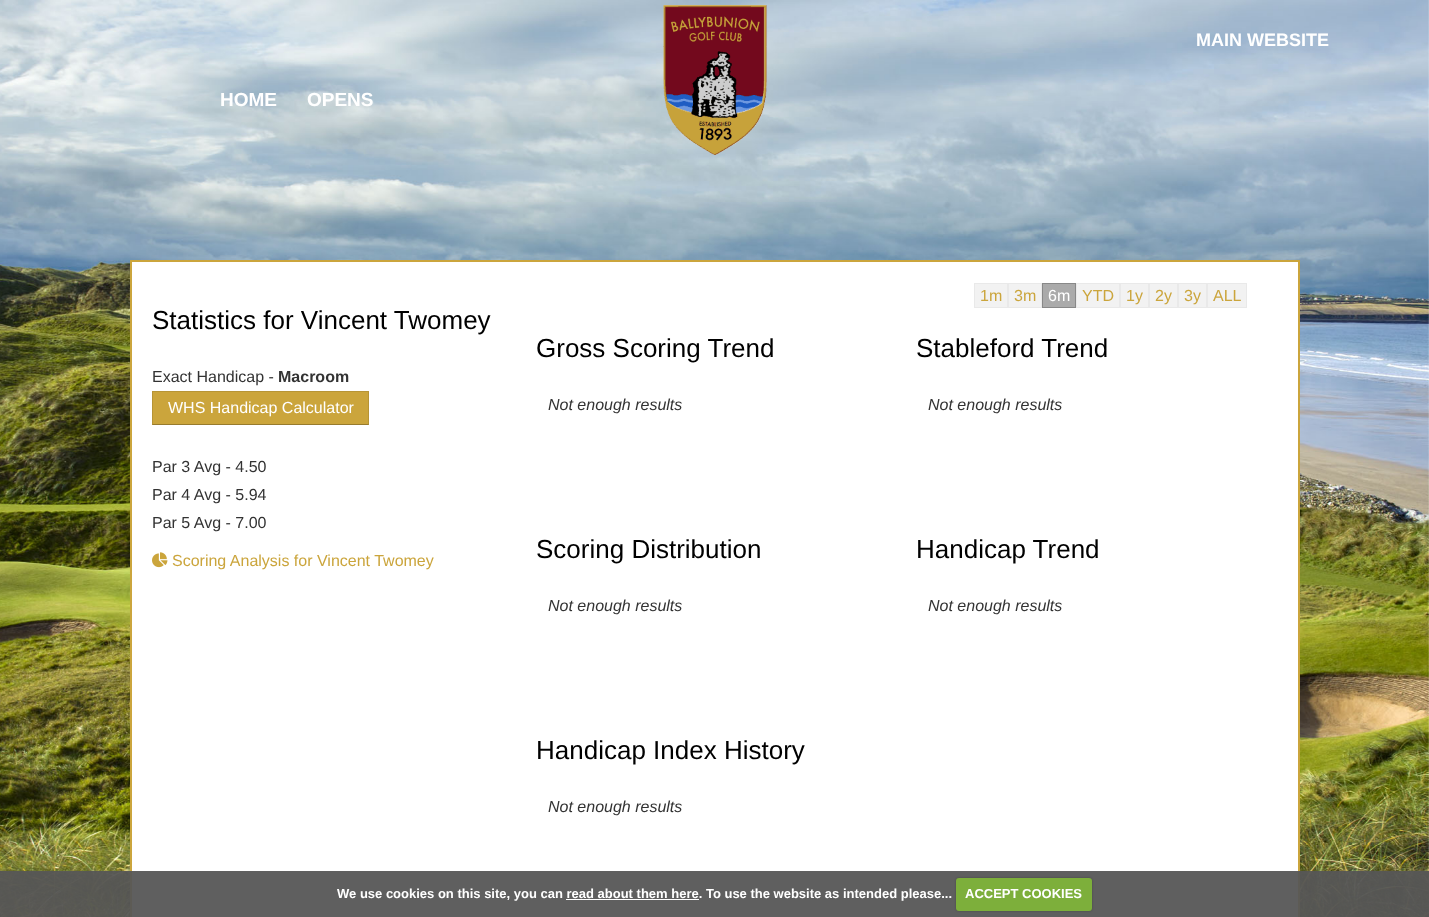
<svg xmlns="http://www.w3.org/2000/svg" width="1429" height="917">
<rect width="100%" height="100%" fill="#fff"/>
<image x="0" y="0" width="1429" height="917" href="media/1.png"/>
<image x="663" y="5" width="104" height="150" href="media/2.png"/>
<text x="1196" y="46" style="font-family:Liberation Sans;font-size:18px;font-weight:bold;fill:#fff">MAIN WEBSITE</text>
<text x="220" y="106" style="font-family:Liberation Sans;font-size:19px;font-weight:bold;fill:#fff">HOME</text>
<text x="307" y="106" style="font-family:Liberation Sans;font-size:19px;font-weight:bold;fill:#fff">OPENS</text>
<rect x="131" y="261" width="1168" height="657" fill="#fff" stroke="#cba53c" stroke-width="2"/>
<text x="152" y="329" style="font-family:Liberation Sans;font-size:26px;fill:#000">Statistics for Vincent Twomey</text>
<text x="152" y="382" style="font-family:Liberation Sans;font-size:16px;fill:#333">Exact Handicap -</text>
<text x="278" y="382" style="font-family:Liberation Sans;font-size:16px;font-weight:bold;fill:#333">Macroom</text>
<rect x="152" y="391" width="217" height="34" fill="#cba53c"/>
<path d="M152 391h217l-1 1h-215z" fill="#b79536"/>
<path d="M369 391v34l-1-1v-32z" fill="#0000001a"/>
<path d="M369 425h-217l1-1h215z" fill="#00000040"/>
<path d="M152 425v-34l1 1v32z" fill="#0000001a"/>
<text x="168" y="413" style="font-family:Liberation Sans;font-size:16px;fill:#fff">WHS Handicap Calculator</text>
<text x="152" y="472" style="font-family:Liberation Sans;font-size:16px;fill:#333">Par 3 Avg - 4.50</text>
<text x="152" y="500" style="font-family:Liberation Sans;font-size:16px;fill:#333">Par 4 Avg - 5.94</text>
<text x="152" y="528" style="font-family:Liberation Sans;font-size:16px;fill:#333">Par 5 Avg - 7.00</text>
<image x="152" y="552" width="16" height="16" href="media/3.png"/>
<text x="172" y="566" style="font-family:Liberation Sans;font-size:16px;fill:#cba53c">Scoring Analysis for Vincent Twomey</text>
<rect x="974.5" y="283.5" width="33" height="24" fill="#f2f2f2" stroke="#e9e9e9"/>
<text x="980" y="301" style="font-family:Liberation Sans;font-size:16px;fill:#cba53c">1m</text>
<rect x="1008.5" y="283.5" width="33" height="24" fill="#f2f2f2" stroke="#e9e9e9"/>
<text x="1014" y="301" style="font-family:Liberation Sans;font-size:16px;fill:#cba53c">3m</text>
<rect x="1042.5" y="283.5" width="33" height="24" fill="#aaa" stroke="#888"/>
<text x="1048" y="301" style="font-family:Liberation Sans;font-size:16px;fill:#fff">6m</text>
<rect x="1076.5" y="283.5" width="43" height="24" fill="#f2f2f2" stroke="#e9e9e9"/>
<text x="1082" y="301" style="font-family:Liberation Sans;font-size:16px;fill:#cba53c">YTD</text>
<rect x="1120.5" y="283.5" width="28" height="24" fill="#f2f2f2" stroke="#e9e9e9"/>
<text x="1126" y="301" style="font-family:Liberation Sans;font-size:16px;fill:#cba53c">1y</text>
<rect x="1149.5" y="283.5" width="28" height="24" fill="#f2f2f2" stroke="#e9e9e9"/>
<text x="1155" y="301" style="font-family:Liberation Sans;font-size:16px;fill:#cba53c">2y</text>
<rect x="1178.5" y="283.5" width="28" height="24" fill="#f2f2f2" stroke="#e9e9e9"/>
<text x="1184" y="301" style="font-family:Liberation Sans;font-size:16px;fill:#cba53c">3y</text>
<rect x="1207.5" y="283.5" width="39" height="24" fill="#f2f2f2" stroke="#e9e9e9"/>
<text x="1213" y="301" style="font-family:Liberation Sans;font-size:16px;fill:#cba53c">ALL</text>
<text x="536" y="357" style="font-family:Liberation Sans;font-size:26px;fill:#000">Gross Scoring Trend</text>
<text x="548" y="410" style="font-family:Liberation Sans;font-size:16px;font-style:italic;fill:#333">Not enough results</text>
<text x="916" y="357" style="font-family:Liberation Sans;font-size:26px;fill:#000">Stableford Trend</text>
<text x="928" y="410" style="font-family:Liberation Sans;font-size:16px;font-style:italic;fill:#333">Not enough results</text>
<text x="536" y="558" style="font-family:Liberation Sans;font-size:26px;fill:#000">Scoring Distribution</text>
<text x="548" y="611" style="font-family:Liberation Sans;font-size:16px;font-style:italic;fill:#333">Not enough results</text>
<text x="916" y="558" style="font-family:Liberation Sans;font-size:26px;fill:#000">Handicap Trend</text>
<text x="928" y="611" style="font-family:Liberation Sans;font-size:16px;font-style:italic;fill:#333">Not enough results</text>
<text x="536" y="759" style="font-family:Liberation Sans;font-size:26px;fill:#000">Handicap Index History</text>
<text x="548" y="812" style="font-family:Liberation Sans;font-size:16px;font-style:italic;fill:#333">Not enough results</text>
<rect y="871" width="1429" height="46" fill="#565656f2"/>
<text x="337" y="898" style="font-family:Liberation Sans;font-size:13px;font-weight:bold;fill:#fff">We use cookies on this site, you can read about them here. To use the website as intended please...</text>
<rect x="956" y="878" width="136" height="33" rx="3" fill="#00000040" filter="blur(1px)"/>
<rect x="956" y="878" width="136" height="33" rx="3" fill="#7daf3b"/>
<text x="965" y="898" style="font-family:Liberation Sans;font-size:13px;font-weight:bold;fill:#fff">ACCEPT COOKIES</text>
<rect x="566" y="899" width="133" height="1" fill="#fff"/>
</svg>
